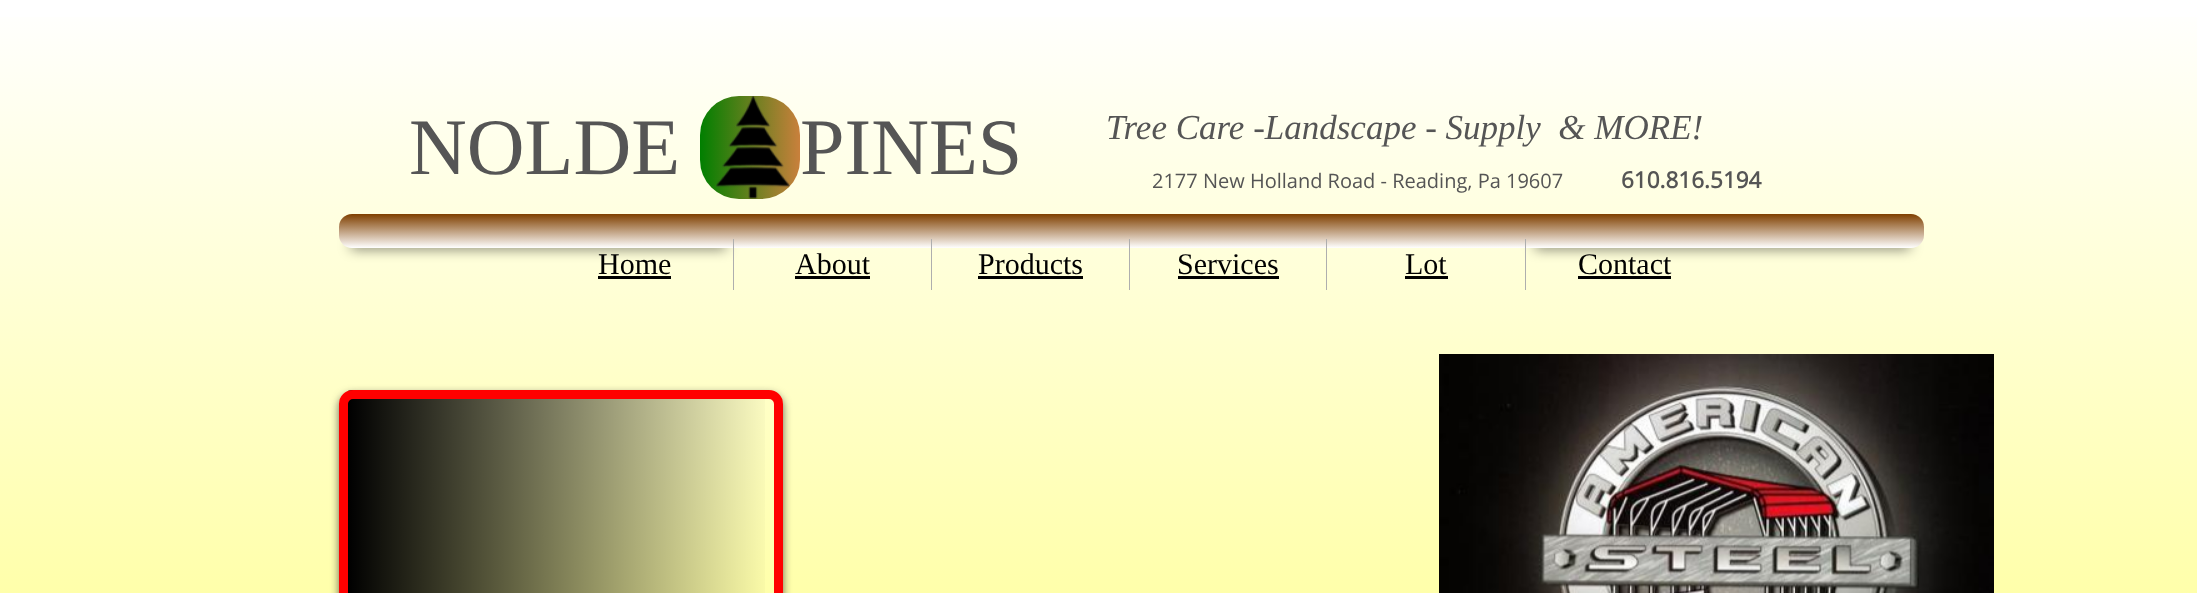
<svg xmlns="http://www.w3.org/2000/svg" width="2197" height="593">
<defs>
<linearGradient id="g1" gradientUnits="userSpaceOnUse" x1="1099" y1="0" x2="1099" y2="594"><stop offset="0" stop-color="#fff"/><stop offset="1" stop-color="#ffa"/></linearGradient>
<linearGradient id="g2" gradientUnits="userSpaceOnUse" x1="700" y1="148" x2="800" y2="148"><stop offset="0" stop-color="#007f00"/><stop offset="1" stop-color="#c9803c"/></linearGradient>
<linearGradient id="g3" gradientUnits="userSpaceOnUse" x1="1131" y1="214" x2="1131" y2="248"><stop offset="0" stop-color="#7f3f00"/><stop offset="1" stop-color="#fff"/></linearGradient>
<clipPath id="clip1"><path d="M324 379h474v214h-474zm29 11h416c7.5 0 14 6.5 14 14v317c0 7.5-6.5 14-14 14h-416c-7.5 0-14-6.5-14-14v-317c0-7.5 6.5-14 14-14z" clip-rule="evenodd"/></clipPath>
<clipPath id="clip2"><rect x="339" y="390" width="444" height="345" rx="14"/></clipPath>
<linearGradient id="g4" gradientUnits="userSpaceOnUse" x1="348" y1="563" x2="774" y2="563"><stop offset="0" stop-color="#000"/><stop offset="1" stop-color="#000" stop-opacity="0"/></linearGradient>
</defs>
<rect width="100%" height="100%" fill="#fff"/>
<rect y="17" width="2197" height="576" fill="url(#g1)"/>
<text x="409" y="174" style="font-family:Liberation Serif;font-size:80px;fill:#555" xml:space="preserve">NOLDE      PINES</text>
<rect x="700" y="96" width="100" height="103" rx="39" fill="url(#g2)"/>
<image x="715" y="96" width="75" height="103" href="media/1.png"/>
<text x="1106" y="139" style="font-family:Liberation Serif;font-size:35px;font-style:italic;fill:#555" xml:space="preserve">Tree Care -Landscape - Supply  &amp; MORE!</text>
<text x="1152" y="188" style="font-family:Open Sans;font-size:20px;fill:#555">2177 New Holland Road - Reading, Pa 19607</text>
<text x="1621" y="188" style="font-family:Open Sans;font-size:22.5px;font-weight:bold;fill:#555">610.816.5194</text>
<rect x="351" y="241" width="375" height="7" fill="#000000b3" filter="blur(6.5px)"/>
<rect x="1535" y="241" width="375" height="7" fill="#000000b3" filter="blur(6.5px)"/>
<rect x="339" y="214" width="1585" height="34" rx="13" fill="url(#g3)"/>
<rect x="733" y="239" width="1" height="51" fill="#aeaeae"/>
<text x="598" y="274" style="font-family:Liberation Serif;font-size:30px;fill:#000">Home</text>
<rect x="598" y="276" width="73" height="3" fill="#000"/>
<rect x="931" y="239" width="1" height="51" fill="#aeaeae"/>
<text x="795" y="274" style="font-family:Liberation Serif;font-size:30px;fill:#000">About</text>
<rect x="795" y="276" width="75" height="3" fill="#000"/>
<rect x="1129" y="239" width="1" height="51" fill="#aeaeae"/>
<text x="978" y="274" style="font-family:Liberation Serif;font-size:30px;fill:#000">Products</text>
<rect x="978" y="276" width="105" height="3" fill="#000"/>
<rect x="1326" y="239" width="1" height="51" fill="#aeaeae"/>
<text x="1177" y="274" style="font-family:Liberation Serif;font-size:30px;fill:#000">Services</text>
<rect x="1178" y="276" width="101" height="3" fill="#000"/>
<rect x="1525" y="239" width="1" height="51" fill="#aeaeae"/>
<text x="1405" y="274" style="font-family:Liberation Serif;font-size:30px;fill:#000">Lot</text>
<rect x="1405" y="276" width="43" height="3" fill="#000"/>
<text x="1578" y="274" style="font-family:Liberation Serif;font-size:30px;fill:#000">Contact</text>
<rect x="1578" y="276" width="93" height="3" fill="#000"/>
<g clip-path="url(#clip1)">
<rect x="339" y="394" width="444" height="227" rx="14" fill="#323232bf" filter="blur(4.5px)"/>
</g>
<g clip-path="url(#clip2)">
<rect x="348" y="390" width="417" height="203" fill="url(#g4)"/>
</g>
<rect x="343.5" y="394.5" width="435" height="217" rx="9.5" fill="none" stroke="#f00" stroke-width="9"/>
<image x="1439" y="354" width="555" height="239" href="media/2.png"/>
</svg>
